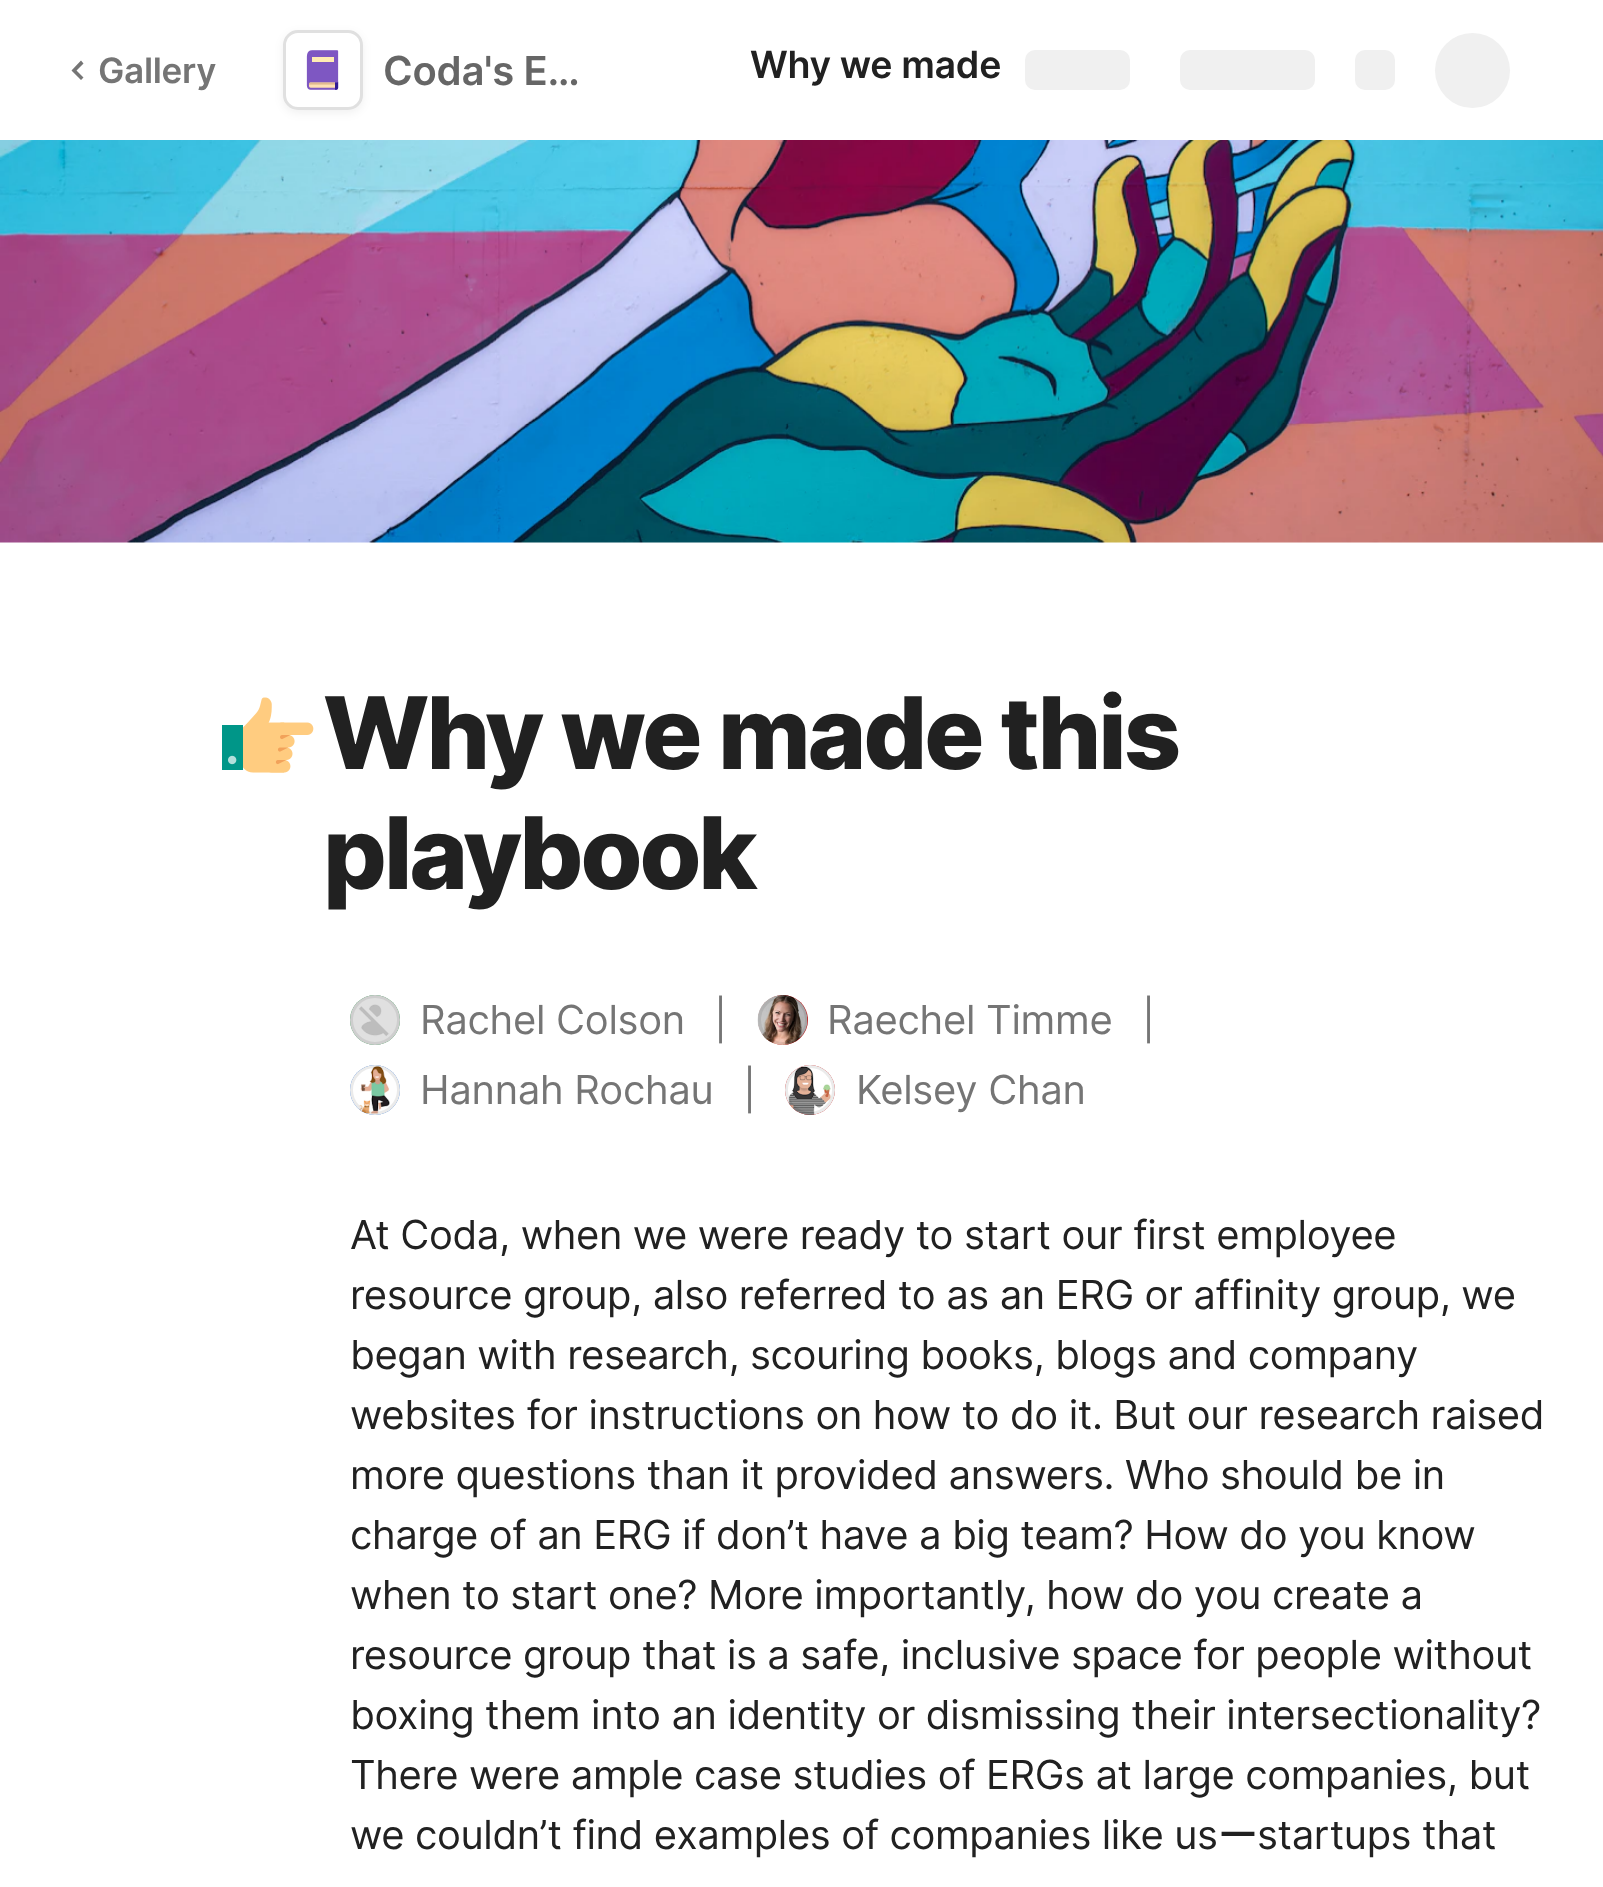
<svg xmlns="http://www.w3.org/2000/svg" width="1603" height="1887">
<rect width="100%" height="100%" fill="#fff"/>
<path d="M83.5 77.5l-2.5 2.5l-9.5-9.5l9.5-10l2.5 3l-7 7z" fill="#757575"/>
<text x="98" y="83" style="font-family:Inter;font-size:35px;font-weight:600;letter-spacing:-0.3px;fill:#757575">Gallery</text>
<rect x="283" y="33" width="80" height="80" rx="15" fill="#0000000f" filter="blur(5px)"/>
<rect x="284.5" y="31.5" width="77" height="77" rx="13.5" fill="#fff" stroke="#e0e0e0" stroke-width="3"/>
<image x="306" y="50" width="33" height="40" href="media/1.png"/>
<text x="383" y="85" style="font-family:Inter;font-size:40px;font-weight:600;letter-spacing:-0.3px;fill:#666">Coda's E…</text>
<text x="750" y="78" style="font-family:Inter;font-size:37.5px;font-weight:600;letter-spacing:-0.3px;fill:#212121">Why we made</text>
<rect x="1025" y="50" width="105" height="40" rx="10" fill="#f0f0f0"/>
<rect x="1180" y="50" width="135" height="40" rx="10" fill="#f0f0f0"/>
<rect x="1355" y="50" width="40" height="40" rx="10" fill="#f0f0f0"/>
<circle cx="1472.5" cy="70.5" r="37.5" fill="#f0f0f0"/>
<image x="0" y="140" width="1603" height="403" href="media/2.png"/>
<image x="222" y="697" width="92" height="76" href="media/3.png"/>
<text x="323" y="769" style="font-family:Inter;font-size:100px;font-weight:800;letter-spacing:-3px;fill:#212121">Why we made this</text>
<text x="323" y="889" style="font-family:Inter;font-size:100px;font-weight:800;letter-spacing:-3px;fill:#212121">playbook</text>
<circle cx="375" cy="1020" r="25" fill="#2e964b"/>
<image x="350" y="995" width="50" height="50" href="media/4.png"/>
<circle cx="375" cy="1020" r="23.5" fill="none" stroke="#00000014" stroke-width="3"/>
<text x="420" y="1034" style="font-family:Inter;font-size:40px;letter-spacing:-0.3px;fill:#757575">Rachel Colson</text>
<text x="714" y="1034" style="font-family:Inter;font-size:40px;letter-spacing:-0.3px;fill:#757575">|</text>
<circle cx="783" cy="1020" r="25" fill="#c91616"/>
<image x="757" y="995" width="51" height="50" href="media/5.png"/>
<circle cx="783" cy="1020" r="23.5" fill="none" stroke="#00000014" stroke-width="3"/>
<text x="827" y="1034" style="font-family:Inter;font-size:40px;letter-spacing:-0.3px;fill:#757575">Raechel Timme</text>
<text x="1142" y="1034" style="font-family:Inter;font-size:40px;letter-spacing:-0.3px;fill:#757575">|</text>
<circle cx="375" cy="1090" r="25" fill="#2f75d7"/>
<image x="350" y="1065" width="50" height="50" href="media/6.png"/>
<circle cx="375" cy="1090" r="23.5" fill="none" stroke="#00000014" stroke-width="3"/>
<text x="420" y="1104" style="font-family:Inter;font-size:40px;letter-spacing:-0.3px;fill:#757575">Hannah Rochau</text>
<text x="743" y="1104" style="font-family:Inter;font-size:40px;letter-spacing:-0.3px;fill:#757575">|</text>
<circle cx="810" cy="1090" r="25" fill="#c91616"/>
<image x="785" y="1065" width="50" height="50" href="media/7.png"/>
<circle cx="810" cy="1090" r="23.5" fill="none" stroke="#00000014" stroke-width="3"/>
<text x="856" y="1104" style="font-family:Inter;font-size:40px;letter-spacing:-0.3px;fill:#757575">Kelsey Chan</text>
<text x="350" y="1249" style="font-family:Inter;font-size:40px;letter-spacing:-0.4px;fill:#212121">At Coda, when we were ready to start our first employee</text>
<text x="350" y="1309" style="font-family:Inter;font-size:40px;letter-spacing:-0.4px;fill:#212121">resource group, also referred to as an ERG or affinity group, we</text>
<text x="350" y="1369" style="font-family:Inter;font-size:40px;letter-spacing:-0.4px;fill:#212121">began with research, scouring books, blogs and company</text>
<text x="350" y="1429" style="font-family:Inter;font-size:40px;letter-spacing:-0.4px;fill:#212121">websites for instructions on how to do it. But our research raised</text>
<text x="350" y="1489" style="font-family:Inter;font-size:40px;letter-spacing:-0.4px;fill:#212121">more questions than it provided answers. Who should be in</text>
<text x="350" y="1549" style="font-family:Inter;font-size:40px;letter-spacing:-0.4px;fill:#212121">charge of an ERG if don’t have a big team? How do you know</text>
<text x="350" y="1609" style="font-family:Inter;font-size:40px;letter-spacing:-0.4px;fill:#212121">when to start one? More importantly, how do you create a</text>
<text x="350" y="1669" style="font-family:Inter;font-size:40px;letter-spacing:-0.4px;fill:#212121">resource group that is a safe, inclusive space for people without</text>
<text x="350" y="1729" style="font-family:Inter;font-size:40px;letter-spacing:-0.4px;fill:#212121">boxing them into an identity or dismissing their intersectionality?</text>
<text x="350" y="1789" style="font-family:Inter;font-size:40px;letter-spacing:-0.4px;fill:#212121">There were ample case studies of ERGs at large companies, but</text>
<text x="350" y="1849" style="font-family:Inter;font-size:40px;letter-spacing:-0.4px;fill:#212121">we couldn’t find examples of companies like us</text>
<text x="1218" y="1849" style="font-family:WenQuanYi Zen Hei;font-size:40px;font-weight:500;letter-spacing:-0.4px;fill:#212121">ー</text>
<text x="1257" y="1849" style="font-family:Inter;font-size:40px;letter-spacing:-0.4px;fill:#212121">startups that</text>
</svg>
